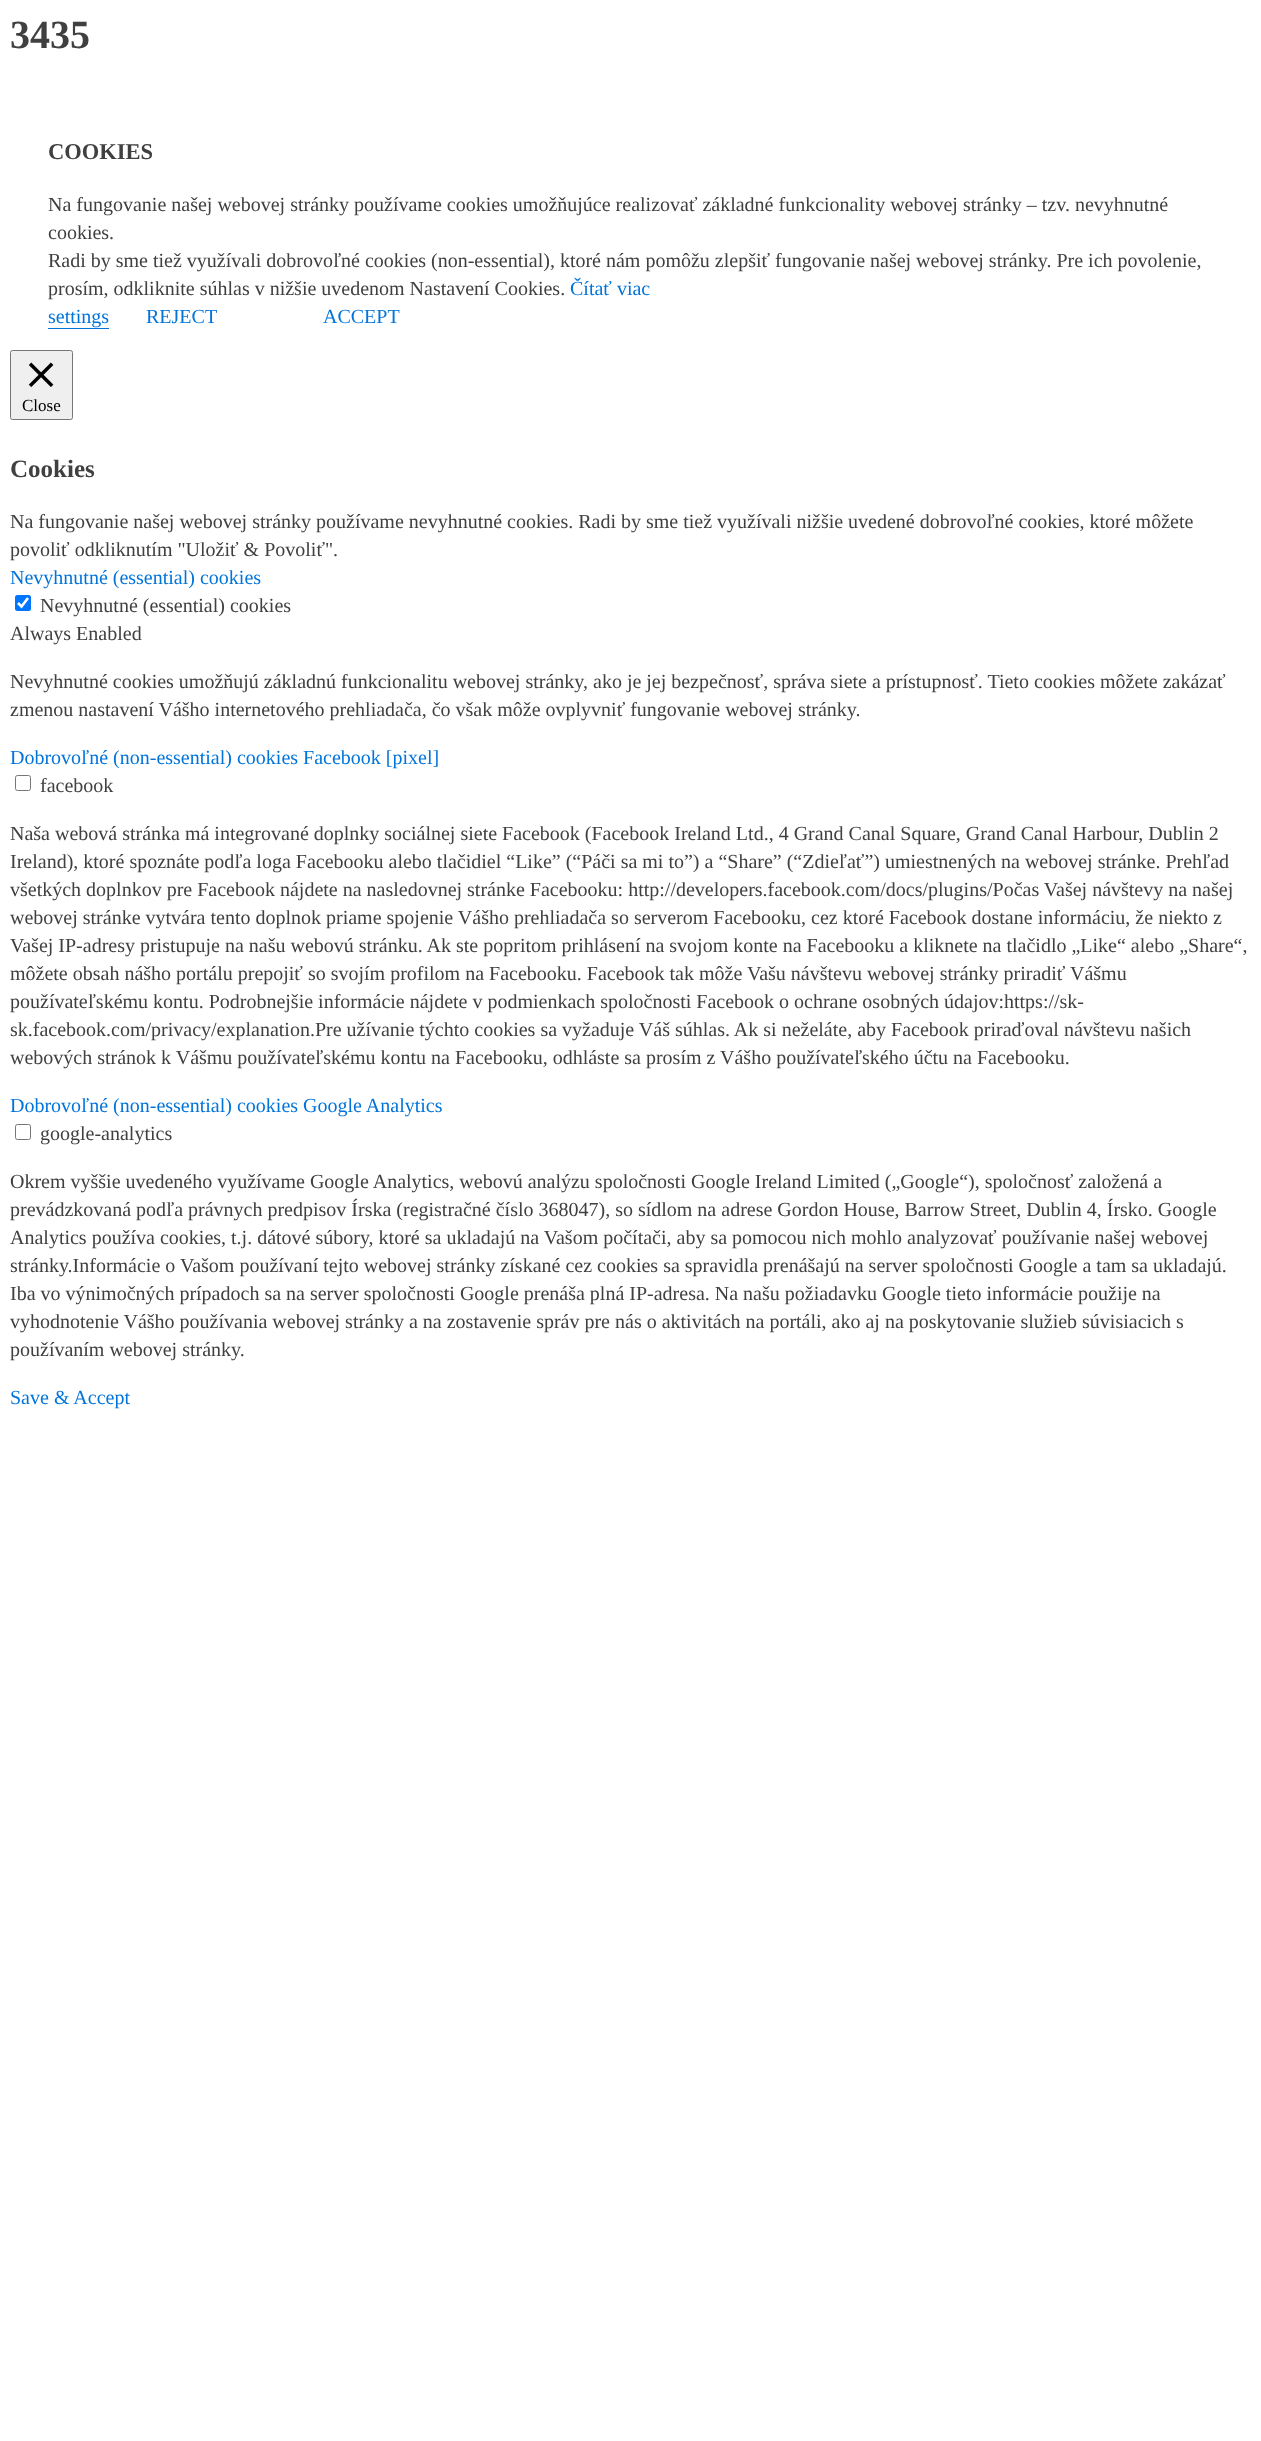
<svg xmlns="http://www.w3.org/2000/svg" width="1261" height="2441">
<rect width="100%" height="100%" fill="#fff"/>
<text x="10" y="48" style="font-family:Liberation Serif;font-size:40px;font-weight:bold;fill:#404040">3435</text>
<text x="48" y="159" style="font-family:Liberation Serif;font-size:22.5px;font-weight:bold;fill:#404040">COOKIES</text>
<text x="48" y="211" style="font-family:Liberation Serif;font-size:20px;fill:#404040">Na fungovanie našej webovej stránky používame cookies umožňujúce realizovať základné funkcionality webovej stránky – tzv. nevyhnutné</text>
<text x="48" y="239" style="font-family:Liberation Serif;font-size:20px;fill:#404040">cookies.</text>
<text x="48" y="267" style="font-family:Liberation Serif;font-size:20px;fill:#404040">Radi by sme tiež využívali dobrovoľné cookies (non-essential), ktoré nám pomôžu zlepšiť fungovanie našej webovej stránky. Pre ich povolenie,</text>
<text x="48" y="295" style="font-family:Liberation Serif;font-size:20px;fill:#404040">prosím, odkliknite súhlas v nižšie uvedenom Nastavení Cookies.</text>
<text x="570" y="295" style="font-family:Liberation Serif;font-size:20px;fill:#0074db">Čítať viac</text>
<text x="48" y="323" style="font-family:Liberation Serif;font-size:20px;fill:#0074db">settings</text>
<rect x="48" y="328" width="61" height="1" fill="#0074db"/>
<text x="146" y="323" style="font-family:Liberation Serif;font-size:20px;fill:#0074db">REJECT</text>
<text x="323" y="323" style="font-family:Liberation Serif;font-size:20px;fill:#0074db">ACCEPT</text>
<rect x="10.5" y="350.5" width="62" height="69" rx="2" fill="#efefef" stroke="#767676"/>
<image x="28" y="362" width="26" height="25" href="media/1.png"/>
<text x="22" y="411" style="font-family:Liberation Serif;font-size:17px;fill:#000">Close</text>
<text x="10" y="477" style="font-family:Liberation Serif;font-size:25px;font-weight:bold;fill:#404040">Cookies</text>
<text x="10" y="528" style="font-family:Liberation Serif;font-size:20px;fill:#404040">Na fungovanie našej webovej stránky používame nevyhnutné cookies. Radi by sme tiež využívali nižšie uvedené dobrovoľné cookies, ktoré môžete</text>
<text x="10" y="556" style="font-family:Liberation Serif;font-size:20px;fill:#404040">povoliť odkliknutím "Uložiť &amp; Povoliť".</text>
<text x="10" y="584" style="font-family:Liberation Serif;font-size:20px;fill:#0074db">Nevyhnutné (essential) cookies</text>
<rect x="15" y="595" width="16" height="16" rx="2.5" fill="#0075ff"/>
<path d="M18 603l3.5 3.5l6.5-8.5" fill="none" stroke="#fff" stroke-width="2.6"/>
<text x="40" y="612" style="font-family:Liberation Serif;font-size:20px;fill:#404040">Nevyhnutné (essential) cookies</text>
<text x="10" y="640" style="font-family:Liberation Serif;font-size:20px;fill:#404040">Always Enabled</text>
<text x="10" y="688" style="font-family:Liberation Serif;font-size:20px;fill:#404040">Nevyhnutné cookies umožňujú základnú funkcionalitu webovej stránky, ako je jej bezpečnosť, správa siete a prístupnosť. Tieto cookies môžete zakázať</text>
<text x="10" y="716" style="font-family:Liberation Serif;font-size:20px;fill:#404040">zmenou nastavení Vášho internetového prehliadača, čo však môže ovplyvniť fungovanie webovej stránky.</text>
<text x="10" y="764" style="font-family:Liberation Serif;font-size:20px;fill:#0074db">Dobrovoľné (non-essential) cookies Facebook [pixel]</text>
<rect x="15.5" y="775.5" width="15" height="15" rx="2" fill="none" stroke="#767676"/>
<text x="40" y="792" style="font-family:Liberation Serif;font-size:20px;fill:#404040">facebook</text>
<text x="10" y="840" style="font-family:Liberation Serif;font-size:20px;fill:#404040">Naša webová stránka má integrované doplnky sociálnej siete Facebook (Facebook Ireland Ltd., 4 Grand Canal Square, Grand Canal Harbour, Dublin 2</text>
<text x="10" y="868" style="font-family:Liberation Serif;font-size:20px;fill:#404040">Ireland), ktoré spoznáte podľa loga Facebooku alebo tlačidiel “Like” (“Páči sa mi to”) a “Share” (“Zdieľať”) umiestnených na webovej stránke. Prehľad</text>
<text x="10" y="896" style="font-family:Liberation Serif;font-size:20px;fill:#404040">všetkých doplnkov pre Facebook nájdete na nasledovnej stránke Facebooku: http://developers.facebook.com/docs/plugins/Počas Vašej návštevy na našej</text>
<text x="10" y="924" style="font-family:Liberation Serif;font-size:20px;fill:#404040">webovej stránke vytvára tento doplnok priame spojenie Vášho prehliadača so serverom Facebooku, cez ktoré Facebook dostane informáciu, že niekto z</text>
<text x="10" y="952" style="font-family:Liberation Serif;font-size:20px;fill:#404040">Vašej IP-adresy pristupuje na našu webovú stránku. Ak ste popritom prihlásení na svojom konte na Facebooku a kliknete na tlačidlo „Like“ alebo „Share“,</text>
<text x="10" y="980" style="font-family:Liberation Serif;font-size:20px;fill:#404040">môžete obsah nášho portálu prepojiť so svojím profilom na Facebooku. Facebook tak môže Vašu návštevu webovej stránky priradiť Vášmu</text>
<text x="10" y="1008" style="font-family:Liberation Serif;font-size:20px;fill:#404040">používateľskému kontu. Podrobnejšie informácie nájdete v podmienkach spoločnosti Facebook o ochrane osobných údajov:https://sk-</text>
<text x="10" y="1036" style="font-family:Liberation Serif;font-size:20px;fill:#404040">sk.facebook.com/privacy/explanation.Pre užívanie týchto cookies sa vyžaduje Váš súhlas. Ak si neželáte, aby Facebook priraďoval návštevu našich</text>
<text x="10" y="1064" style="font-family:Liberation Serif;font-size:20px;fill:#404040">webových stránok k Vášmu používateľskému kontu na Facebooku, odhláste sa prosím z Vášho používateľského účtu na Facebooku.</text>
<text x="10" y="1112" style="font-family:Liberation Serif;font-size:20px;fill:#0074db">Dobrovoľné (non-essential) cookies Google Analytics</text>
<rect x="15.5" y="1124.5" width="15" height="15" rx="2" fill="none" stroke="#767676"/>
<text x="40" y="1140" style="font-family:Liberation Serif;font-size:20px;fill:#404040">google-analytics</text>
<text x="10" y="1188" style="font-family:Liberation Serif;font-size:20px;fill:#404040">Okrem vyššie uvedeného využívame Google Analytics, webovú analýzu spoločnosti Google Ireland Limited („Google“), spoločnosť založená a</text>
<text x="10" y="1216" style="font-family:Liberation Serif;font-size:20px;fill:#404040">prevádzkovaná podľa právnych predpisov Írska (registračné číslo 368047), so sídlom na adrese Gordon House, Barrow Street, Dublin 4, Írsko. Google</text>
<text x="10" y="1244" style="font-family:Liberation Serif;font-size:20px;fill:#404040">Analytics používa cookies, t.j. dátové súbory, ktoré sa ukladajú na Vašom počítači, aby sa pomocou nich mohlo analyzovať používanie našej webovej</text>
<text x="10" y="1272" style="font-family:Liberation Serif;font-size:20px;fill:#404040">stránky.Informácie o Vašom používaní tejto webovej stránky získané cez cookies sa spravidla prenášajú na server spoločnosti Google a tam sa ukladajú.</text>
<text x="10" y="1300" style="font-family:Liberation Serif;font-size:20px;fill:#404040">Iba vo výnimočných prípadoch sa na server spoločnosti Google prenáša plná IP-adresa. Na našu požiadavku Google tieto informácie použije na</text>
<text x="10" y="1328" style="font-family:Liberation Serif;font-size:20px;fill:#404040">vyhodnotenie Vášho používania webovej stránky a na zostavenie správ pre nás o aktivitách na portáli, ako aj na poskytovanie služieb súvisiacich s</text>
<text x="10" y="1356" style="font-family:Liberation Serif;font-size:20px;fill:#404040">používaním webovej stránky.</text>
<text x="10" y="1404" style="font-family:Liberation Serif;font-size:20px;fill:#0074db">Save &amp; Accept</text>
</svg>
